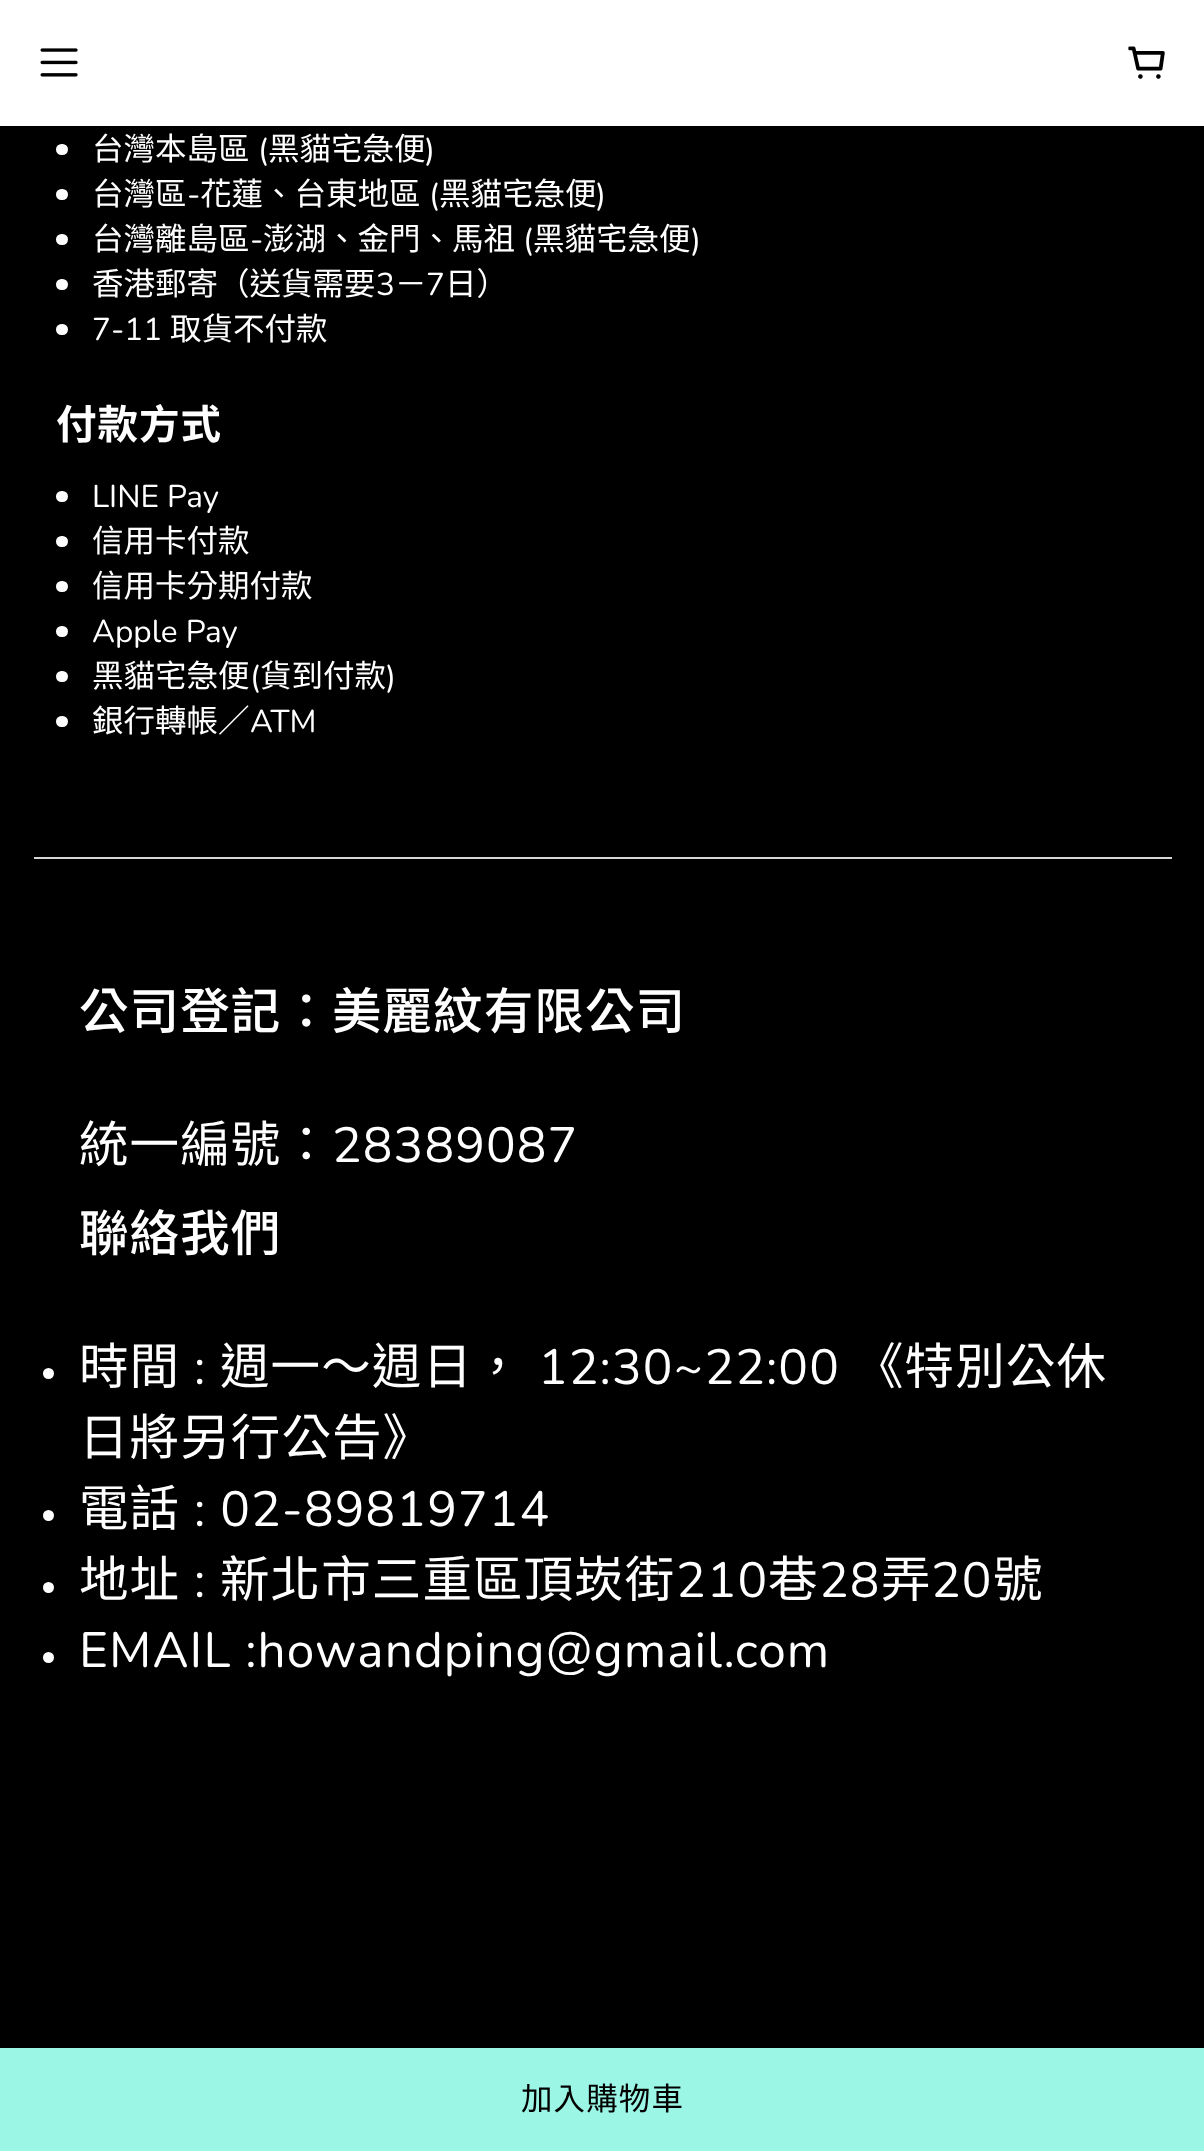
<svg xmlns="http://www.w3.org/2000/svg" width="1204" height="2151">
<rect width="100%" height="100%" fill="#000"/>
<rect width="1204" height="126" fill="#fff"/>
<image x="40" y="48" width="38" height="29" href="media/1.png"/>
<image x="1128" y="46" width="37" height="33" href="media/2.png"/>
<rect x="56" y="144" width="12" height="11" rx="5.5" fill="#fff"/>
<text x="92" y="160" style="font-family:Noto Sans TC;font-size:31.5px;fill:#fff">台灣本島區</text>
<text x="258" y="160" style="font-family:Nunito;font-size:31.5px;fill:#fff">(</text>
<text x="268" y="160" style="font-family:Noto Sans TC;font-size:31.5px;fill:#fff">黑貓宅急便</text>
<text x="425" y="160" style="font-family:Nunito;font-size:31.5px;fill:#fff">)</text>
<rect x="56" y="189" width="12" height="11" rx="5.5" fill="#fff"/>
<text x="92" y="205" style="font-family:Noto Sans TC;font-size:31.5px;fill:#fff">台灣區</text>
<text x="187" y="205" style="font-family:Nunito;font-size:31.5px;fill:#fff">-</text>
<text x="200" y="205" style="font-family:Noto Sans TC;font-size:31.5px;fill:#fff">花蓮、台東地區</text>
<text x="429" y="205" style="font-family:Nunito;font-size:31.5px;fill:#fff">(</text>
<text x="439" y="205" style="font-family:Noto Sans TC;font-size:31.5px;fill:#fff">黑貓宅急便</text>
<text x="596" y="205" style="font-family:Nunito;font-size:31.5px;fill:#fff">)</text>
<rect x="56" y="234" width="12" height="11" rx="5.5" fill="#fff"/>
<text x="92" y="250" style="font-family:Noto Sans TC;font-size:31.5px;fill:#fff">台灣離島區</text>
<text x="250" y="250" style="font-family:Nunito;font-size:31.5px;fill:#fff">-</text>
<text x="263" y="250" style="font-family:Noto Sans TC;font-size:31.5px;fill:#fff">澎湖、金門、馬祖</text>
<text x="523" y="250" style="font-family:Nunito;font-size:31.5px;fill:#fff">(</text>
<text x="533" y="250" style="font-family:Noto Sans TC;font-size:31.5px;fill:#fff">黑貓宅急便</text>
<text x="691" y="250" style="font-family:Nunito;font-size:31.5px;fill:#fff">)</text>
<rect x="56" y="279" width="12" height="11" rx="5.5" fill="#fff"/>
<text x="92" y="295" style="font-family:Noto Sans TC;font-size:31.5px;fill:#fff">香港郵寄（送貨需要</text>
<text x="376" y="295" style="font-family:Nunito;font-size:31.5px;fill:#fff">3</text>
<text x="395" y="295" style="font-family:Noto Sans TC;font-size:31.5px;fill:#fff">－</text>
<text x="426" y="295" style="font-family:Nunito;font-size:31.5px;fill:#fff">7</text>
<text x="445" y="295" style="font-family:Noto Sans TC;font-size:31.5px;fill:#fff">日）</text>
<rect x="56" y="324" width="12" height="11" rx="5.5" fill="#fff"/>
<text x="92" y="340" style="font-family:Nunito;font-size:31.5px;fill:#fff">7-11</text>
<text x="170" y="340" style="font-family:Noto Sans TC;font-size:31.5px;fill:#fff">取貨不付款</text>
<text x="56" y="439" style="font-family:Noto Sans TC;font-size:40.5px;font-weight:bold;letter-spacing:1px;fill:#fff">付款方式</text>
<rect x="56" y="491" width="12" height="11" rx="5.5" fill="#fff"/>
<text x="92" y="507" style="font-family:Nunito;font-size:31.5px;fill:#fff">LINE Pay</text>
<rect x="56" y="536" width="12" height="11" rx="5.5" fill="#fff"/>
<text x="92" y="552" style="font-family:Noto Sans TC;font-size:31.5px;fill:#fff">信用卡付款</text>
<rect x="56" y="581" width="12" height="11" rx="5.5" fill="#fff"/>
<text x="92" y="597" style="font-family:Noto Sans TC;font-size:31.5px;fill:#fff">信用卡分期付款</text>
<rect x="56" y="626" width="12" height="11" rx="5.5" fill="#fff"/>
<text x="92" y="642" style="font-family:Nunito;font-size:31.5px;fill:#fff">Apple Pay</text>
<rect x="56" y="671" width="12" height="11" rx="5.5" fill="#fff"/>
<text x="92" y="687" style="font-family:Noto Sans TC;font-size:31.5px;fill:#fff">黑貓宅急便</text>
<text x="250" y="687" style="font-family:Nunito;font-size:31.5px;fill:#fff">(</text>
<text x="260" y="687" style="font-family:Noto Sans TC;font-size:31.5px;fill:#fff">貨到付款</text>
<text x="386" y="687" style="font-family:Nunito;font-size:31.5px;fill:#fff">)</text>
<rect x="56" y="716" width="12" height="11" rx="5.5" fill="#fff"/>
<text x="92" y="732" style="font-family:Noto Sans TC;font-size:31.5px;fill:#fff">銀行轉帳／</text>
<text x="250" y="732" style="font-family:Nunito;font-size:31.5px;fill:#fff">ATM</text>
<rect y="2048" width="1204" height="103" fill="#9cf6e5"/>
<text x="521" y="2110" style="font-family:Noto Sans TC;font-size:31.5px;letter-spacing:1.1px;fill:#000">加入購物車</text>
<rect x="34" y="857" width="1138" height="2" fill="#d6d6d6"/>
<text x="79" y="1029" style="font-family:Noto Sans TC;font-size:49.5px;font-weight:500;letter-spacing:1.1px;fill:#fff">公司登記：美麗紋有限公司</text>
<text x="79" y="1162" style="font-family:Noto Sans TC;font-size:49.5px;letter-spacing:1.1px;fill:#fff">統一編號：</text>
<text x="332" y="1162" style="font-family:Nunito;font-size:49.5px;letter-spacing:1.1px;fill:#fff">28389087</text>
<text x="79" y="1251" style="font-family:Noto Sans TC;font-size:49.5px;font-weight:500;letter-spacing:1.1px;fill:#fff">聯絡我們</text>
<circle cx="48.5" cy="1373.5" r="5.5" fill="#fff"/>
<text x="79" y="1384" style="font-family:Noto Sans TC;font-size:49.5px;letter-spacing:1.1px;fill:#fff">時間</text>
<text x="194" y="1384" style="font-family:Nunito;font-size:49.5px;letter-spacing:1.1px;fill:#fff">:</text>
<text x="220" y="1384" style="font-family:Noto Sans TC;font-size:49.5px;letter-spacing:1.1px;fill:#fff">週一～週日，</text>
<text x="538" y="1384" style="font-family:Nunito;font-size:49.5px;letter-spacing:1.1px;fill:#fff">12:30~22:00</text>
<text x="854" y="1384" style="font-family:Noto Sans TC;font-size:49.5px;letter-spacing:1.1px;fill:#fff">《特別公休</text>
<text x="79" y="1455" style="font-family:Noto Sans TC;font-size:49.5px;letter-spacing:1.1px;fill:#fff">日將另行公告》</text>
<circle cx="48.5" cy="1515.5" r="5.5" fill="#fff"/>
<text x="79" y="1526" style="font-family:Noto Sans TC;font-size:49.5px;letter-spacing:1.1px;fill:#fff">電話</text>
<text x="194" y="1526" style="font-family:Nunito;font-size:49.5px;letter-spacing:1.1px;fill:#fff">: 02-89819714</text>
<circle cx="48.5" cy="1587.5" r="5.5" fill="#fff"/>
<text x="79" y="1597" style="font-family:Noto Sans TC;font-size:49.5px;letter-spacing:1.1px;fill:#fff">地址</text>
<text x="194" y="1597" style="font-family:Nunito;font-size:49.5px;letter-spacing:1.1px;fill:#fff">:</text>
<text x="220" y="1597" style="font-family:Noto Sans TC;font-size:49.5px;letter-spacing:1.1px;fill:#fff">新北市三重區頂崁街</text>
<text x="676" y="1597" style="font-family:Nunito;font-size:49.5px;letter-spacing:1.1px;fill:#fff">210</text>
<text x="768" y="1597" style="font-family:Noto Sans TC;font-size:49.5px;letter-spacing:1.1px;fill:#fff">巷</text>
<text x="819" y="1597" style="font-family:Nunito;font-size:49.5px;letter-spacing:1.1px;fill:#fff">28</text>
<text x="881" y="1597" style="font-family:Noto Sans TC;font-size:49.5px;letter-spacing:1.1px;fill:#fff">弄</text>
<text x="931" y="1597" style="font-family:Nunito;font-size:49.5px;letter-spacing:1.1px;fill:#fff">20</text>
<text x="993" y="1597" style="font-family:Noto Sans TC;font-size:49.5px;letter-spacing:1.1px;fill:#fff">號</text>
<circle cx="48.5" cy="1657.5" r="5.5" fill="#fff"/>
<text x="79" y="1667" style="font-family:Nunito;font-size:49.5px;letter-spacing:1.1px;fill:#fff">EMAIL :howandping@gmail.com</text>
</svg>
